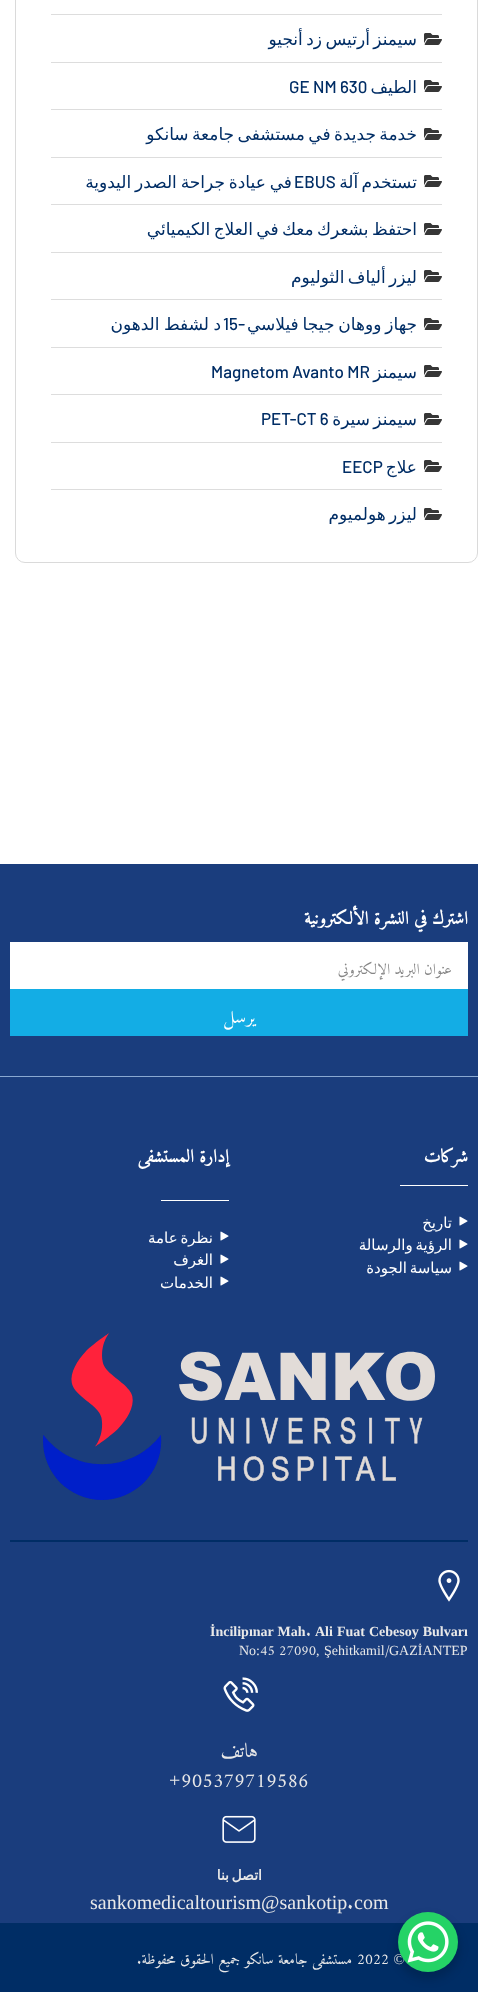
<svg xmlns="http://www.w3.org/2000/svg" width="478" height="1992">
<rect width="100%" height="100%" fill="#fff"/>
<rect x="15.5" y="-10.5" width="462" height="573" rx="9.5" fill="none" stroke="#dadada"/>
<rect x="51" y="14" width="391" height="1" fill="#ddd"/>
<image x="424" y="33" width="18" height="12" href="media/1.png"/>
<text x="417" y="45" word-spacing="-2" style="font-family:DejaVu Sans;font-size:17px;direction:rtl;fill:#002d65">سيمنز أرتيس زد أنجيو</text>
<rect x="51" y="62" width="391" height="1" fill="#ddd"/>
<image x="424" y="80" width="18" height="12" href="media/1.png"/>
<text x="417" y="93" style="font-family:DejaVu Sans;font-size:17px;direction:rtl;fill:#002d65">الطيف</text>
<text x="289" y="93" style="font-family:Barlow;font-size:17px;font-weight:500;fill:#002d65">GE NM 630</text>
<rect x="51" y="109" width="391" height="1" fill="#ddd"/>
<image x="424" y="128" width="18" height="12" href="media/1.png"/>
<text x="417" y="140" word-spacing="-2" style="font-family:DejaVu Sans;font-size:17px;direction:rtl;fill:#002d65">خدمة جديدة في مستشفى جامعة سانكو</text>
<rect x="51" y="157" width="391" height="1" fill="#ddd"/>
<image x="424" y="175" width="18" height="12" href="media/1.png"/>
<text x="417" y="188" word-spacing="-2" style="font-family:DejaVu Sans;font-size:17px;direction:rtl;fill:#002d65">تستخدم آلة</text>
<text x="292" y="188" word-spacing="-1.5" style="font-family:DejaVu Sans;font-size:17px;direction:rtl;fill:#002d65">في عيادة جراحة الصدر اليدوية</text>
<text x="294" y="188" style="font-family:Barlow;font-size:17px;font-weight:500;fill:#002d65">EBUS</text>
<rect x="51" y="204" width="391" height="1" fill="#ddd"/>
<image x="424" y="223" width="18" height="12" href="media/1.png"/>
<text x="417" y="235" word-spacing="-2" style="font-family:DejaVu Sans;font-size:17px;direction:rtl;fill:#002d65">احتفظ بشعرك معك في العلاج الكيميائي</text>
<rect x="51" y="252" width="391" height="1" fill="#ddd"/>
<image x="424" y="270" width="18" height="12" href="media/1.png"/>
<text x="417" y="283" word-spacing="-2" style="font-family:DejaVu Sans;font-size:17px;direction:rtl;fill:#002d65">ليزر ألياف الثوليوم</text>
<rect x="51" y="299" width="391" height="1" fill="#ddd"/>
<image x="424" y="318" width="18" height="12" href="media/1.png"/>
<text x="417" y="330" word-spacing="-1.5" style="font-family:DejaVu Sans;font-size:17px;direction:rtl;fill:#002d65">جهاز ووهان جيجا فيلاسي</text>
<text x="245" y="330" style="font-family:Barlow;font-size:17px;font-weight:500;direction:rtl;fill:#002d65">-</text>
<text x="223" y="330" style="font-family:Barlow;font-size:17px;font-weight:500;fill:#002d65">15</text>
<text x="221" y="330" word-spacing="-1" style="font-family:DejaVu Sans;font-size:17px;direction:rtl;fill:#002d65">د لشفط الدهون</text>
<rect x="51" y="347" width="391" height="1" fill="#ddd"/>
<image x="424" y="365" width="18" height="12" href="media/1.png"/>
<text x="417" y="378" style="font-family:DejaVu Sans;font-size:17px;direction:rtl;fill:#002d65">سيمنز</text>
<text x="211" y="378" style="font-family:Barlow;font-size:17px;font-weight:500;fill:#002d65">Magnetom Avanto MR</text>
<rect x="51" y="394" width="391" height="1" fill="#ddd"/>
<image x="424" y="413" width="18" height="12" href="media/1.png"/>
<text x="417" y="425" word-spacing="-2" style="font-family:DejaVu Sans;font-size:17px;direction:rtl;fill:#002d65">سيمنز سيرة</text>
<text x="261" y="425" style="font-family:Barlow;font-size:17px;font-weight:500;fill:#002d65">PET-CT 6</text>
<rect x="51" y="442" width="391" height="1" fill="#ddd"/>
<image x="424" y="460" width="18" height="12" href="media/1.png"/>
<text x="417" y="473" style="font-family:DejaVu Sans;font-size:17px;direction:rtl;fill:#002d65">علاج</text>
<text x="342" y="473" style="font-family:Barlow;font-size:17px;font-weight:500;fill:#002d65">EECP</text>
<rect x="51" y="489" width="391" height="1" fill="#ddd"/>
<image x="424" y="508" width="18" height="12" href="media/1.png"/>
<text x="417" y="520" word-spacing="-2" style="font-family:DejaVu Sans;font-size:17px;direction:rtl;fill:#002d65">ليزر هولميوم</text>
<rect y="864" width="478" height="212" fill="#1a3d7d"/>
<rect y="1076" width="478" height="1" fill="#8aa9d1"/>
<text x="468" y="924" style="font-family:Amiri Quran;font-size:18px;font-weight:bold;direction:rtl;fill:#fff">اشترك في النشرة الألكترونية</text>
<rect x="10" y="942" width="458" height="47" fill="#fff"/>
<text x="452" y="974" style="font-family:Amiri Quran;font-size:15px;direction:rtl;fill:#868686">عنوان البريد الإلكتروني</text>
<rect x="10" y="989" width="458" height="47" fill="#13ade5"/>
<text x="255" y="1023" style="font-family:Amiri Quran;font-size:19px;direction:rtl;fill:#fff">يرسل</text>
<rect y="1077" width="478" height="846" fill="#1a3d7d"/>
<text x="468" y="1162" style="font-family:Amiri Quran;font-size:18px;font-weight:bold;direction:rtl;fill:#fff">شركات</text>
<rect x="400" y="1185" width="68" height="1" fill="#fff"/>
<image x="459" y="1216" width="9" height="10" href="media/2.png"/>
<text x="452" y="1228" style="font-family:DejaVu Sans;font-size:15px;direction:rtl;fill:#fff">تاريخ</text>
<image x="459" y="1239" width="9" height="10" href="media/2.png"/>
<text x="452" y="1250" word-spacing="-2" style="font-family:DejaVu Sans;font-size:15px;direction:rtl;fill:#fff">الرؤية والرسالة</text>
<image x="459" y="1261" width="9" height="10" href="media/2.png"/>
<text x="452" y="1273" word-spacing="-2" style="font-family:DejaVu Sans;font-size:15px;direction:rtl;fill:#fff">سياسة الجودة</text>
<text x="229" y="1162" style="font-family:Amiri Quran;font-size:18px;font-weight:bold;direction:rtl;fill:#fff">إدارة المستشفى</text>
<rect x="161" y="1200" width="68" height="1" fill="#fff"/>
<image x="220" y="1231" width="9" height="10" href="media/2.png"/>
<text x="213" y="1243" word-spacing="-2" style="font-family:DejaVu Sans;font-size:15px;direction:rtl;fill:#fff">نظرة عامة</text>
<image x="220" y="1254" width="9" height="10" href="media/2.png"/>
<text x="213" y="1265" style="font-family:DejaVu Sans;font-size:15px;direction:rtl;fill:#fff">الغرف</text>
<image x="220" y="1276" width="9" height="10" href="media/2.png"/>
<text x="213" y="1288" style="font-family:DejaVu Sans;font-size:15px;direction:rtl;fill:#fff">الخدمات</text>
<image x="43" y="1333" width="392" height="167" href="media/3.png"/>
<rect x="10" y="1540" width="458" height="2" fill="#002d65"/>
<image x="438" y="1569" width="22" height="33" href="media/4.png"/>
<text x="315" y="1636" word-spacing="0.5" style="font-family:Liberation Serif;font-size:14px;font-weight:bold;fill:#e8e8e8">Ali Fuat Cebesoy Bulvarı</text>
<text x="306" y="1636" style="font-family:Amiri Quran;font-size:14px;font-weight:bold;fill:#e8e8e8">.</text>
<text x="210" y="1636" word-spacing="0.5" style="font-family:Liberation Serif;font-size:14px;font-weight:bold;fill:#e8e8e8">İncilipınar Mah</text>
<text x="389" y="1655" style="font-family:Liberation Serif;font-size:14px;fill:#e8e8e8">GAZİANTEP</text>
<text x="324" y="1655" style="font-family:Liberation Serif;font-size:14px;fill:#e8e8e8">Şehitkamil</text>
<text x="385" y="1655" style="font-family:Amiri Quran;font-size:14px;fill:#e8e8e8">/</text>
<text x="316" y="1655" style="font-family:Liberation Serif;font-size:14px;fill:#e8e8e8">,</text>
<text x="260" y="1655" style="font-family:Amiri Quran;font-size:14px;fill:#e8e8e8">45 27090</text>
<text x="239" y="1655" style="font-family:Liberation Serif;font-size:14px;fill:#e8e8e8">No:</text>
<image x="223" y="1677" width="35" height="35" href="media/5.png"/>
<text x="258" y="1757" style="font-family:Amiri Quran;font-size:20px;direction:rtl;fill:#e8e8e8">هاتف</text>
<text x="181" y="1787" style="font-family:Amiri Quran;font-size:20px;fill:#e8e8e8">905379719586</text>
<text x="169" y="1787" style="font-family:Liberation Serif;font-size:20px;fill:#e8e8e8">+</text>
<image x="222" y="1815" width="34" height="28" href="media/6.png"/>
<text x="262" y="1880" word-spacing="-2" style="font-family:DejaVu Sans;font-size:14px;font-weight:bold;direction:rtl;fill:#e8e8e8">اتصل بنا</text>
<text x="354" y="1909" style="font-family:Liberation Serif;font-size:20px;fill:#e8e8e8">com</text>
<text x="347" y="1909" style="font-family:Amiri Quran;font-size:20px;fill:#e8e8e8">.</text>
<text x="90" y="1909" style="font-family:Liberation Serif;font-size:20px;fill:#e8e8e8">sankomedicaltourism@sankotip</text>
<rect y="1923" width="478" height="69" fill="#002d65"/>
<text x="405" y="1964" style="font-family:Liberation Serif;font-size:15px;direction:rtl;fill:#e8e8e8">©</text>
<text x="357" y="1964" style="font-family:Amiri Quran;font-size:15px;fill:#e8e8e8">2022</text>
<text x="352" y="1964" style="font-family:Amiri Quran;font-size:15px;direction:rtl;fill:#e8e8e8">مستشفى جامعة سانكو جميع الحقوق محفوظة.</text>
<rect x="396" y="1916" width="64" height="64" rx="32" fill="#00000026" filter="blur(4px)"/>
<circle cx="428" cy="1942" r="30" fill="#25d366"/>
<image x="407" y="1921" width="42" height="42" href="media/7.png"/>
</svg>
